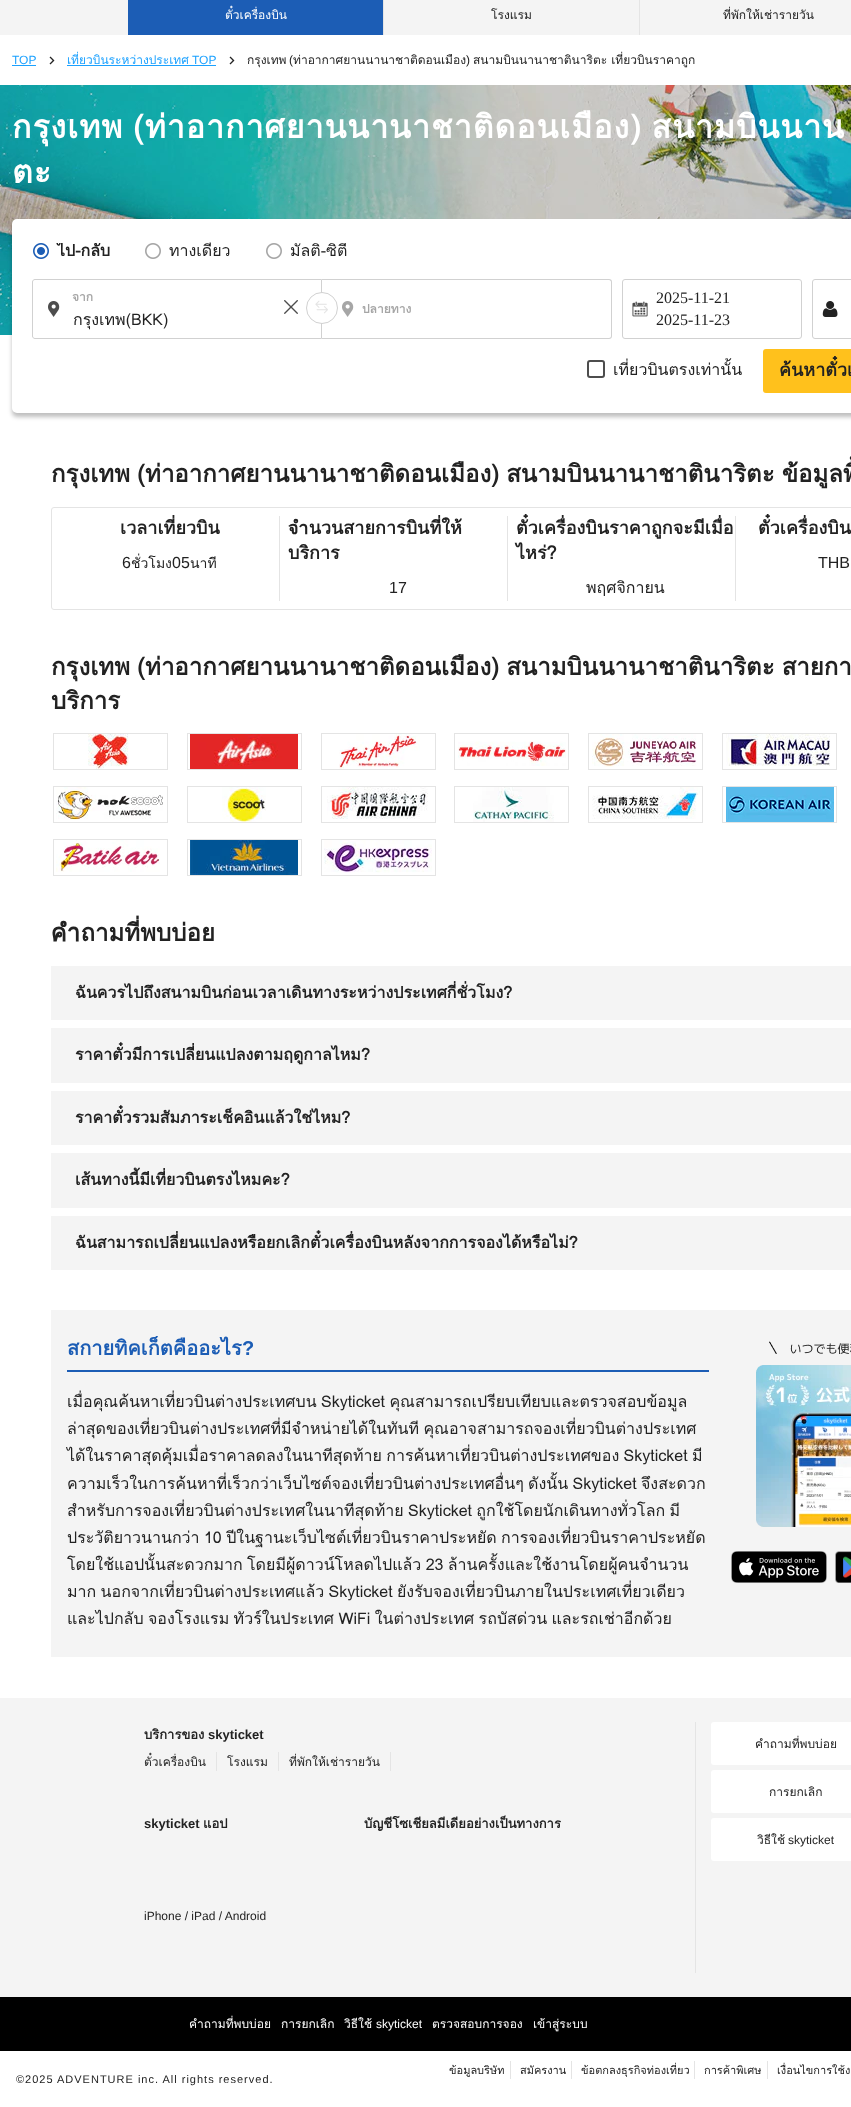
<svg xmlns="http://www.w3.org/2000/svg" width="851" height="2107">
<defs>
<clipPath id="clip1"><rect x="32" y="243" width="349" height="24"/></clipPath>
</defs>
<rect width="100%" height="100%" fill="#fff"/>
<rect width="851" height="35" fill="#f4f4f4"/>
<rect x="128" width="255" height="35" fill="#1c5db5"/>
<rect x="383" width="1" height="35" fill="#e4e4e4"/>
<text x="225" y="19" style="font-family:Loma;font-size:12px;fill:#fff">ตั๋วเครื่องบิน</text>
<rect x="639" width="1" height="35" fill="#e4e4e4"/>
<text x="491" y="19" style="font-family:Loma;font-size:12px;fill:#222">โรงแรม</text>
<text x="723" y="19" style="font-family:Loma;font-size:12px;fill:#222">ที่พักให้เช่ารายวัน</text>
<text x="12" y="64" style="font-family:Liberation Sans;font-size:12px;fill:#1ba1ff">TOP</text>
<rect x="12" y="65" width="24" height="1" fill="#1ba1ff"/>
<image x="49" y="56" width="6" height="9" href="media/1.png"/>
<text x="67" y="64" style="font-family:Loma;font-size:12px;fill:#1ba1ff">เที่ยวบินระหว่างประเทศ</text>
<text x="192" y="64" style="font-family:Liberation Sans;font-size:12px;fill:#1ba1ff">TOP</text>
<rect x="67" y="65" width="149" height="1" fill="#1ba1ff"/>
<image x="229" y="56" width="6" height="9" href="media/1.png"/>
<text x="289" y="64" style="font-family:Liberation Sans;font-size:12px;fill:#222">(</text>
<text x="293" y="64" style="font-family:Loma;font-size:12px;fill:#222">ท่าอากาศยานนานาชาติดอนเมือง</text>
<text x="473" y="64" style="font-family:Loma;font-size:12px;fill:#222">สนามบินนานาชาตินาริตะ เที่ยวบินราคาถูก</text>
<text x="247" y="64" style="font-family:Loma;font-size:12px;fill:#222">กรุงเทพ</text>
<text x="466" y="64" style="font-family:Liberation Sans;font-size:12px;fill:#222">)</text>
<image x="0" y="85" width="851" height="250" href="media/2.png"/>
<text x="12" y="138" word-spacing="-2" style="font-family:Loma;font-size:32px;font-weight:bold;letter-spacing:1px;fill:#fff">กรุงเทพ (ท่าอากาศยานนานาชาติดอนเมือง) สนามบินนาน</text>
<text x="12" y="183" style="font-family:Loma;font-size:32px;font-weight:bold;letter-spacing:1px;fill:#fff">ตะ</text>
<rect x="12" y="223" width="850" height="194" rx="5" fill="#00000040" filter="blur(2px)"/>
<rect x="12" y="219" width="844" height="194" rx="5" fill="#fff"/>
<image x="33" y="243" width="16" height="16" href="media/3.png"/>
<g clip-path="url(#clip1)">
<text x="57" y="256" style="font-family:Loma;font-size:16px;font-weight:bold;fill:#222">ไป-กลับ</text>
</g>
<image x="145" y="243" width="16" height="16" href="media/4.png"/>
<text x="169" y="256" style="font-family:Loma;font-size:16px;fill:#222">ทางเดียว</text>
<image x="266" y="243" width="16" height="16" href="media/4.png"/>
<g clip-path="url(#clip1)">
<text x="290" y="256" style="font-family:Loma;font-size:16px;fill:#222">มัลติ-ซิตี้</text>
</g>
<path d="M35 279.5h286.5v59h-286.5c-1.5 0-2.5-1-2.5-2.5v-54c0-1.5 1-2.5 2.5-2.5z" fill="none" stroke="#d1d1d1"/>
<image x="48" y="301" width="12" height="16" href="media/5.png"/>
<text x="72" y="301" style="font-family:Loma;font-size:12px;font-weight:bold;fill:#a6a6a6">จาก</text>
<text x="73" y="325" style="font-family:Loma;font-size:16px;fill:#222">กรุงเทพ(BKK)</text>
<image x="284" y="300" width="14" height="14" href="media/6.png"/>
<path d="M322 279h287c2 0 3 1 3 3v54c0 2-1 3-3 3h-287zm0 1h287c1 0 2 1 2 2v54c0 1-1 2-2 2h-287z" fill="#d1d1d1" fill-rule="evenodd"/>
<circle cx="322" cy="308" r="15.5" fill="#fff" stroke="#d1d1d1"/>
<image x="315" y="300" width="13" height="14" href="media/7.png"/>
<image x="342" y="301" width="12" height="16" href="media/8.png"/>
<text x="362" y="313" style="font-family:Loma;font-size:12px;font-weight:bold;fill:#a6a6a6">ปลายทาง</text>
<rect x="622.5" y="279.5" width="179" height="59" rx="2.5" fill="none" stroke="#d1d1d1"/>
<image x="632" y="301" width="16" height="16" href="media/9.png"/>
<text x="656" y="303" style="font-family:Liberation Serif;font-size:16px;fill:#222">2025-11-21</text>
<text x="656" y="325" style="font-family:Liberation Serif;font-size:16px;fill:#222">2025-11-23</text>
<rect x="812.5" y="279.5" width="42" height="59" rx="2.5" fill="none" stroke="#d1d1d1"/>
<image x="822" y="301" width="16" height="16" href="media/10.png"/>
<rect x="588" y="361" width="16" height="16" rx="2" fill="none" stroke="#4d4d4d" stroke-width="2"/>
<text x="613" y="375" style="font-family:Loma;font-size:16px;fill:#222">เที่ยวบินตรงเท่านั้น</text>
<rect x="763" y="349" width="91" height="44" rx="3" fill="#ffc11c"/>
<text x="779" y="376" style="font-family:Loma;font-size:18px;font-weight:bold;fill:#222">ค้นหาตั๋วเ</text>
<text x="51" y="482" word-spacing="-1" style="font-family:Loma;font-size:24px;font-weight:bold;fill:#222">กรุงเทพ (ท่าอากาศยานนานาชาติดอนเมือง) สนามบินนานาชาตินาริตะ ข้อมูลพื้</text>
<rect x="51.5" y="507.5" width="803" height="102" rx="2.5" fill="none" stroke="#e4e4e4"/>
<rect x="279" y="516" width="1" height="85" fill="#e4e4e4"/>
<text x="120" y="534" style="font-family:Loma;font-size:18px;font-weight:bold;fill:#222">เวลาเที่ยวบิน</text>
<text x="122" y="568" style="font-family:Liberation Sans;font-size:16px;fill:#222">6</text>
<text x="131" y="568" style="font-family:Loma;font-size:14px;fill:#222">ชั่วโมง</text>
<text x="172" y="568" style="font-family:Liberation Sans;font-size:16px;fill:#222">05</text>
<text x="190" y="568" style="font-family:Loma;font-size:14px;fill:#222">นาที</text>
<rect x="507" y="516" width="1" height="85" fill="#e4e4e4"/>
<text x="288" y="534" style="font-family:Loma;font-size:18px;font-weight:bold;fill:#222">จำนวนสายการบินที่ให้</text>
<text x="288" y="559" style="font-family:Loma;font-size:18px;font-weight:bold;fill:#222">บริการ</text>
<text x="389" y="593" style="font-family:Liberation Sans;font-size:16px;fill:#222">17</text>
<rect x="735" y="516" width="1" height="85" fill="#e4e4e4"/>
<text x="516" y="534" style="font-family:Loma;font-size:18px;font-weight:bold;fill:#222">ตั๋วเครื่องบินราคาถูกจะมีเมื่อ</text>
<text x="516" y="559" style="font-family:Loma;font-size:18px;font-weight:bold;fill:#222">ไหร่?</text>
<text x="586" y="593" style="font-family:Loma;font-size:16px;fill:#222">พฤศจิกายน</text>
<text x="758" y="534" style="font-family:Loma;font-size:18px;font-weight:bold;fill:#222">ตั๋วเครื่องบิน</text>
<text x="818" y="568" style="font-family:Liberation Sans;font-size:16px;fill:#222">THB</text>
<text x="51" y="675" word-spacing="-1" style="font-family:Loma;font-size:24px;font-weight:bold;fill:#222">กรุงเทพ (ท่าอากาศยานนานาชาติดอนเมือง) สนามบินนานาชาตินาริตะ สายกา</text>
<text x="51" y="709" style="font-family:Loma;font-size:24px;font-weight:bold;fill:#222">บริการ</text>
<rect x="53.5" y="733.5" width="114" height="36" fill="none" stroke="#e4e4e4"/>
<image x="88" y="734" width="41" height="35" href="media/11.png"/>
<rect x="187.5" y="733.5" width="114" height="36" fill="none" stroke="#e4e4e4"/>
<image x="190" y="734" width="108" height="35" href="media/12.png"/>
<rect x="321.5" y="733.5" width="114" height="36" fill="none" stroke="#e4e4e4"/>
<image x="339" y="734" width="81" height="35" href="media/13.png"/>
<rect x="454.5" y="733.5" width="114" height="36" fill="none" stroke="#e4e4e4"/>
<image x="458" y="741" width="108" height="25" href="media/14.png"/>
<rect x="588.5" y="733.5" width="114" height="36" fill="none" stroke="#e4e4e4"/>
<image x="592" y="734" width="105" height="33" href="media/15.png"/>
<rect x="722.5" y="733.5" width="114" height="36" fill="none" stroke="#e4e4e4"/>
<image x="726" y="734" width="104" height="33" href="media/16.png"/>
<rect x="53.5" y="786.5" width="114" height="36" fill="none" stroke="#e4e4e4"/>
<image x="56" y="787" width="107" height="33" href="media/17.png"/>
<rect x="187.5" y="786.5" width="114" height="36" fill="none" stroke="#e4e4e4"/>
<image x="222" y="787" width="44" height="35" href="media/18.png"/>
<rect x="321.5" y="786.5" width="114" height="36" fill="none" stroke="#e4e4e4"/>
<image x="327" y="787" width="101" height="32" href="media/19.png"/>
<rect x="454.5" y="786.5" width="114" height="36" fill="none" stroke="#e4e4e4"/>
<image x="473" y="787" width="81" height="35" href="media/20.png"/>
<rect x="588.5" y="786.5" width="114" height="36" fill="none" stroke="#e4e4e4"/>
<image x="592" y="787" width="108" height="32" href="media/21.png"/>
<rect x="722.5" y="786.5" width="114" height="36" fill="none" stroke="#e4e4e4"/>
<image x="726" y="787" width="108" height="35" href="media/22.png"/>
<rect x="53.5" y="839.5" width="114" height="36" fill="none" stroke="#e4e4e4"/>
<image x="56" y="840" width="104" height="32" href="media/23.png"/>
<rect x="187.5" y="839.5" width="114" height="36" fill="none" stroke="#e4e4e4"/>
<image x="190" y="840" width="108" height="35" href="media/24.png"/>
<rect x="321.5" y="839.5" width="114" height="36" fill="none" stroke="#e4e4e4"/>
<image x="324" y="840" width="108" height="33" href="media/25.png"/>
<text x="51" y="941" style="font-family:Loma;font-size:24px;font-weight:bold;fill:#222">คำถามที่พบบ่อย</text>
<rect x="51" y="966" width="800" height="54" fill="#f4f4f4"/>
<text x="75" y="998" style="font-family:Loma;font-size:16px;font-weight:bold;fill:#222">ฉันควรไปถึงสนามบินก่อนเวลาเดินทางระหว่างประเทศกี่ชั่วโมง?</text>
<rect x="51" y="1028" width="800" height="55" fill="#f4f4f4"/>
<text x="75" y="1060" style="font-family:Loma;font-size:16px;font-weight:bold;fill:#222">ราคาตั๋วมีการเปลี่ยนแปลงตามฤดูกาลไหม?</text>
<rect x="51" y="1091" width="800" height="54" fill="#f4f4f4"/>
<text x="75" y="1123" style="font-family:Loma;font-size:16px;font-weight:bold;fill:#222">ราคาตั๋วรวมสัมภาระเช็คอินแล้วใช่ไหม?</text>
<rect x="51" y="1153" width="800" height="55" fill="#f4f4f4"/>
<text x="75" y="1185" style="font-family:Loma;font-size:16px;font-weight:bold;fill:#222">เส้นทางนี้มีเที่ยวบินตรงไหมคะ?</text>
<rect x="51" y="1216" width="800" height="54" fill="#f4f4f4"/>
<text x="75" y="1248" style="font-family:Loma;font-size:16px;font-weight:bold;fill:#222">ฉันสามารถเปลี่ยนแปลงหรือยกเลิกตั๋วเครื่องบินหลังจากการจองได้หรือไม่?</text>
<rect x="51" y="1310" width="800" height="347" fill="#f4f4f4"/>
<rect x="67" y="1370" width="642" height="2" fill="#1c5db5"/>
<text x="67" y="1355" style="font-family:Loma;font-size:20px;font-weight:bold;fill:#1c5db5">สกายทิคเก็ตคืออะไร</text>
<text x="242" y="1355" style="font-family:Liberation Sans;font-size:20px;font-weight:bold;fill:#1c5db5">?</text>
<text x="67" y="1407" word-spacing="-1" style="font-family:Loma;font-size:16px;fill:#222">เมื่อคุณค้นหาเที่ยวบินต่างประเทศบน Skyticket คุณสามารถเปรียบเทียบและตรวจสอบข้อมูล</text>
<text x="67" y="1434" word-spacing="-1" style="font-family:Loma;font-size:16px;fill:#222">ล่าสุดของเที่ยวบินต่างประเทศที่มีจำหน่ายได้ในทันที คุณอาจสามารถจองเที่ยวบินต่างประเทศ</text>
<text x="67" y="1461" word-spacing="-1" style="font-family:Loma;font-size:16px;fill:#222">ได้ในราคาสุดคุ้มเมื่อราคาลดลงในนาทีสุดท้าย การค้นหาเที่ยวบินต่างประเทศของ Skyticket มี</text>
<text x="67" y="1489" word-spacing="-1" style="font-family:Loma;font-size:16px;fill:#222">ความเร็วในการค้นหาที่เร็วกว่าเว็บไซต์จองเที่ยวบินต่างประเทศอื่นๆ ดังนั้น Skyticket จึงสะดวก</text>
<text x="67" y="1516" word-spacing="-1" style="font-family:Loma;font-size:16px;fill:#222">สำหรับการจองเที่ยวบินต่างประเทศในนาทีสุดท้าย Skyticket ถูกใช้โดยนักเดินทางทั่วโลก มี</text>
<text x="67" y="1543" word-spacing="-1" style="font-family:Loma;font-size:16px;fill:#222">ประวัติยาวนานกว่า 10 ปีในฐานะเว็บไซต์เที่ยวบินราคาประหยัด การจองเที่ยวบินราคาประหยัด</text>
<text x="67" y="1570" word-spacing="-1" style="font-family:Loma;font-size:16px;fill:#222">โดยใช้แอปนั้นสะดวกมาก โดยมีผู้ดาวน์โหลดไปแล้ว 23 ล้านครั้งและใช้งานโดยผู้คนจำนวน</text>
<text x="67" y="1597" word-spacing="-1" style="font-family:Loma;font-size:16px;fill:#222">มาก นอกจากเที่ยวบินต่างประเทศแล้ว Skyticket ยังรับจองเที่ยวบินภายในประเทศเที่ยวเดียว</text>
<text x="67" y="1624" word-spacing="-1" style="font-family:Loma;font-size:16px;fill:#222">และไปกลับ จองโรงแรม ทัวร์ในประเทศ WiFi ในต่างประเทศ รถบัสด่วน และรถเช่าอีกด้วย</text>
<image x="756" y="1341" width="95" height="186" href="media/26.png"/>
<image x="731" y="1551" width="96" height="32" href="media/27.png"/>
<image x="835" y="1551" width="16" height="32" href="media/28.png"/>
<rect y="1698" width="851" height="299" fill="#f4f4f4"/>
<rect x="695" y="1722" width="1" height="251" fill="#e4e4e4"/>
<text x="144" y="1739" style="font-family:Loma;font-size:13px;font-weight:bold;fill:#222">บริการของ</text>
<text x="208" y="1739" style="font-family:Liberation Sans;font-size:13px;font-weight:bold;fill:#222">skyticket</text>
<rect x="216" y="1752" width="1" height="19" fill="#e4e4e4"/>
<text x="144" y="1766" style="font-family:Loma;font-size:12px;fill:#222">ตั๋วเครื่องบิน</text>
<rect x="278" y="1752" width="1" height="19" fill="#e4e4e4"/>
<text x="227" y="1766" style="font-family:Loma;font-size:12px;fill:#222">โรงแรม</text>
<rect x="390" y="1752" width="1" height="19" fill="#e4e4e4"/>
<text x="289" y="1766" style="font-family:Loma;font-size:12px;fill:#222">ที่พักให้เช่ารายวัน</text>
<text x="144" y="1828" style="font-family:Liberation Sans;font-size:13px;font-weight:bold;fill:#222">skyticket</text>
<text x="203" y="1828" style="font-family:Loma;font-size:13px;font-weight:bold;fill:#222">แอป</text>
<text x="144" y="1920" style="font-family:Liberation Sans;font-size:12px;fill:#222">iPhone / iPad / Android</text>
<text x="364" y="1828" style="font-family:Loma;font-size:13px;font-weight:bold;fill:#222">บัญชีโซเชียลมีเดียอย่างเป็นทางการ</text>
<rect x="711" y="1722" width="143" height="43" rx="3" fill="#fff"/>
<text x="755" y="1748" style="font-family:Loma;font-size:12px;fill:#222">คำถามที่พบบ่อย</text>
<rect x="711" y="1770" width="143" height="43" rx="3" fill="#fff"/>
<text x="769" y="1796" style="font-family:Loma;font-size:12px;fill:#222">การยกเลิก</text>
<rect x="711" y="1818" width="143" height="43" rx="3" fill="#fff"/>
<text x="757" y="1844" style="font-family:Loma;font-size:12px;fill:#222">วิธีใช้</text>
<text x="788" y="1844" style="font-family:Liberation Sans;font-size:12px;fill:#222">skyticket</text>
<rect y="1997" width="851" height="54" fill="#000"/>
<text x="189" y="2028" style="font-family:Loma;font-size:12px;fill:#fff">คำถามที่พบบ่อย</text>
<text x="281" y="2028" style="font-family:Loma;font-size:12px;fill:#fff">การยกเลิก</text>
<text x="344" y="2028" style="font-family:Loma;font-size:12px;fill:#fff">วิธีใช้</text>
<text x="376" y="2028" style="font-family:Liberation Sans;font-size:12px;fill:#fff">skyticket</text>
<text x="432" y="2028" style="font-family:Loma;font-size:12px;fill:#fff">ตรวจสอบการจอง</text>
<text x="533" y="2028" style="font-family:Loma;font-size:12px;fill:#fff">เข้าสู่ระบบ</text>
<rect x="510" y="2061" width="1" height="18" fill="#e4e4e4"/>
<text x="449" y="2074" style="font-family:Loma;font-size:11px;fill:#222">ข้อมูลบริษัท</text>
<rect x="571" y="2061" width="1" height="18" fill="#e4e4e4"/>
<text x="520" y="2074" style="font-family:Loma;font-size:11px;fill:#222">สมัครงาน</text>
<rect x="694" y="2061" width="1" height="18" fill="#e4e4e4"/>
<text x="581" y="2074" style="font-family:Loma;font-size:11px;fill:#222">ข้อตกลงธุรกิจท่องเที่ยว</text>
<rect x="767" y="2061" width="1" height="18" fill="#e4e4e4"/>
<text x="704" y="2074" style="font-family:Loma;font-size:11px;fill:#222">การค้าพิเศษ</text>
<text x="777" y="2074" style="font-family:Loma;font-size:11px;fill:#222">เงื่อนไขการใช้ง</text>
<text x="16" y="2083" style="font-family:Liberation Sans;font-size:11px;letter-spacing:1px;fill:#222">©2025</text>
<text x="57" y="2083" style="font-family:Liberation Sans;font-size:11px;letter-spacing:1px;fill:#222">ADVENTURE inc. All rights reserved.</text>
</svg>
